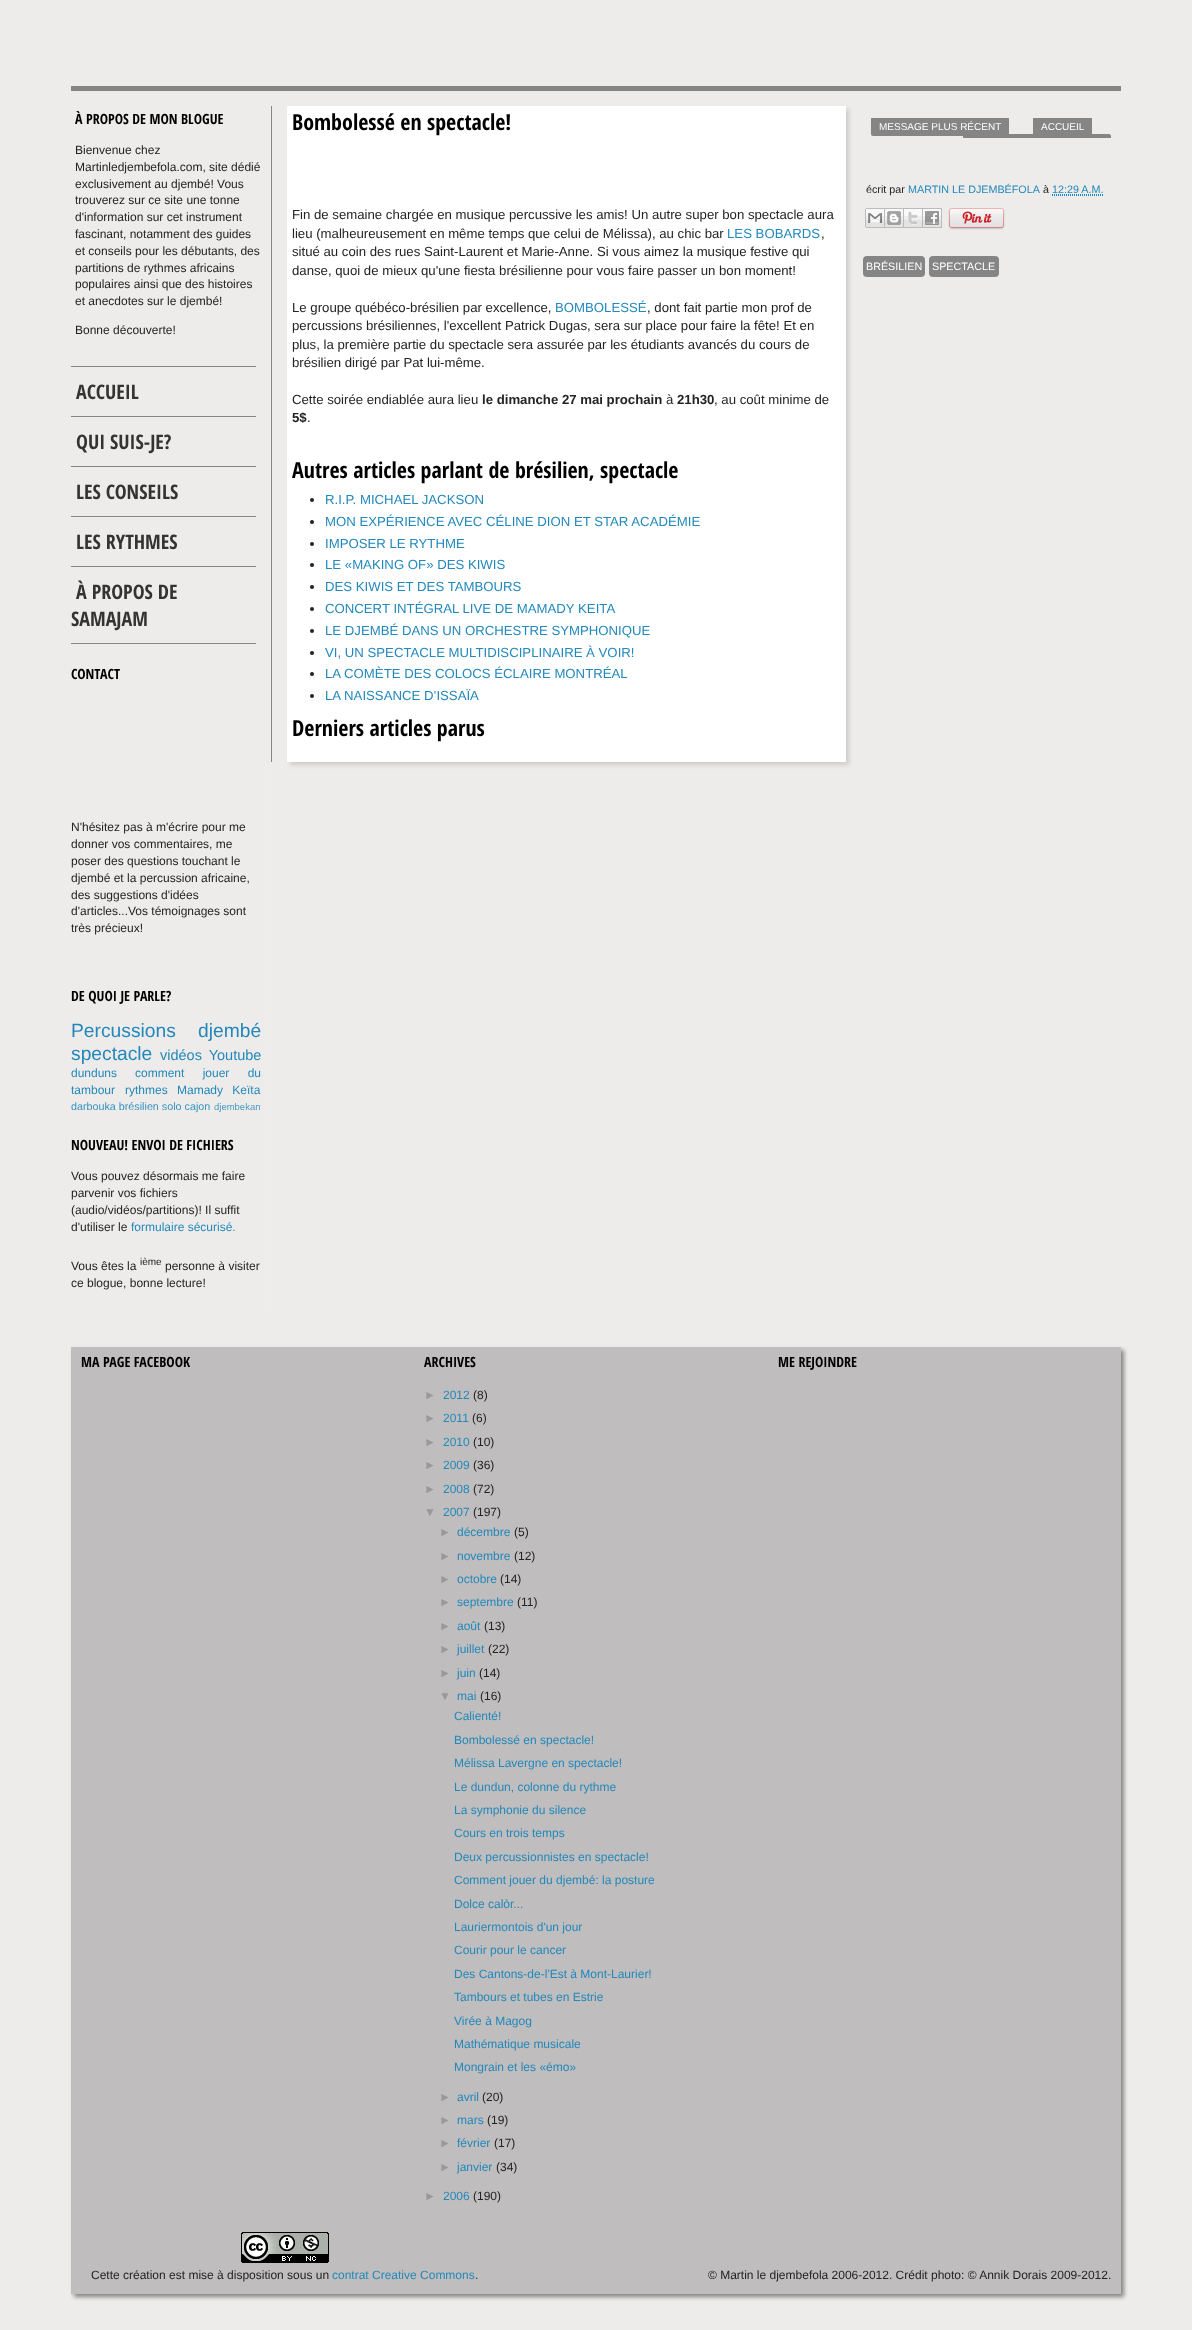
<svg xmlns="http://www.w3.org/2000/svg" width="1192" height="2330">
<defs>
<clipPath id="clip1"><rect x="871" y="118" width="245" height="20"/></clipPath>
</defs>
<rect width="100%" height="100%" fill="#eeecea"/>
<rect x="71" y="86" width="1050" height="5" fill="#858585"/>
<rect x="270" y="106" width="1" height="1206" fill="#eee"/>
<text x="75" y="124" style="font-family:Open Sans Condensed;font-size:14px;font-weight:bold;fill:#000">À PROPOS DE MON BLOGUE</text>
<text x="75" y="154" style="font-family:Liberation Sans;font-size:12px;fill:#232323">Bienvenue chez</text>
<text x="75" y="171" style="font-family:Liberation Sans;font-size:12px;fill:#232323">Martinledjembefola.com, site dédié</text>
<text x="75" y="188" style="font-family:Liberation Sans;font-size:12px;fill:#232323">exclusivement au djembé! Vous</text>
<text x="75" y="204" style="font-family:Liberation Sans;font-size:12px;fill:#232323">trouverez sur ce site une tonne</text>
<text x="75" y="221" style="font-family:Liberation Sans;font-size:12px;fill:#232323">d'information sur cet instrument</text>
<text x="75" y="238" style="font-family:Liberation Sans;font-size:12px;fill:#232323">fascinant, notamment des guides</text>
<text x="75" y="255" style="font-family:Liberation Sans;font-size:12px;fill:#232323">et conseils pour les débutants, des</text>
<text x="75" y="272" style="font-family:Liberation Sans;font-size:12px;fill:#232323">partitions de rythmes africains</text>
<text x="75" y="288" style="font-family:Liberation Sans;font-size:12px;fill:#232323">populaires ainsi que des histoires</text>
<text x="75" y="305" style="font-family:Liberation Sans;font-size:12px;fill:#232323">et anecdotes sur le djembé!</text>
<text x="75" y="334" style="font-family:Liberation Sans;font-size:12px;fill:#232323">Bonne découverte!</text>
<rect x="71" y="366" width="185" height="1" fill="#858585"/>
<rect x="71" y="416" width="185" height="1" fill="#858585"/>
<text x="76" y="399" style="font-family:Open Sans Condensed;font-size:20px;font-weight:bold;fill:#333">ACCUEIL</text>
<rect x="71" y="466" width="185" height="1" fill="#858585"/>
<text x="76" y="449" style="font-family:Open Sans Condensed;font-size:20px;font-weight:bold;fill:#333">QUI SUIS-JE?</text>
<rect x="71" y="516" width="185" height="1" fill="#858585"/>
<text x="76" y="499" style="font-family:Open Sans Condensed;font-size:20px;font-weight:bold;fill:#333">LES CONSEILS</text>
<rect x="71" y="566" width="185" height="1" fill="#858585"/>
<text x="76" y="549" style="font-family:Open Sans Condensed;font-size:20px;font-weight:bold;fill:#333">LES RYTHMES</text>
<rect x="71" y="643" width="185" height="1" fill="#858585"/>
<text x="76" y="599" style="font-family:Open Sans Condensed;font-size:20px;font-weight:bold;fill:#333">À PROPOS DE</text>
<text x="71" y="626" style="font-family:Open Sans Condensed;font-size:20px;font-weight:bold;fill:#333">SAMAJAM</text>
<text x="71" y="679" style="font-family:Open Sans Condensed;font-size:14px;font-weight:bold;fill:#000">CONTACT</text>
<text x="71" y="831" style="font-family:Liberation Sans;font-size:12px;fill:#232323">N'hésitez pas à m'écrire pour me</text>
<text x="71" y="848" style="font-family:Liberation Sans;font-size:12px;fill:#232323">donner vos commentaires, me</text>
<text x="71" y="865" style="font-family:Liberation Sans;font-size:12px;fill:#232323">poser des questions touchant le</text>
<text x="71" y="882" style="font-family:Liberation Sans;font-size:12px;fill:#232323">djembé et la percussion africaine,</text>
<text x="71" y="899" style="font-family:Liberation Sans;font-size:12px;fill:#232323">des suggestions d'idées</text>
<text x="71" y="915" style="font-family:Liberation Sans;font-size:12px;fill:#232323">d'articles...Vos témoignages sont</text>
<text x="71" y="932" style="font-family:Liberation Sans;font-size:12px;fill:#232323">très précieux!</text>
<text x="71" y="1001" style="font-family:Open Sans Condensed;font-size:14px;font-weight:bold;fill:#000">DE QUOI JE PARLE?</text>
<text x="71" y="1037" style="font-family:Liberation Sans;font-size:19.25px;fill:#28b">Percussions</text>
<text x="198" y="1037" style="font-family:Liberation Sans;font-size:19.25px;fill:#28b">djembé</text>
<text x="71" y="1060" style="font-family:Liberation Sans;font-size:19.25px;fill:#28b">spectacle</text>
<text x="160" y="1060" word-spacing="3" style="font-family:Liberation Sans;font-size:14.5px;fill:#28b">vidéos Youtube</text>
<text x="71" y="1077" style="font-family:Liberation Sans;font-size:12px;fill:#28b">dunduns</text>
<text x="135" y="1077" word-spacing="15" style="font-family:Liberation Sans;font-size:12px;fill:#28b">comment jouer du</text>
<text x="71" y="1094" style="font-family:Liberation Sans;font-size:12px;fill:#28b">tambour</text>
<text x="125" y="1094" style="font-family:Liberation Sans;font-size:12px;fill:#28b">rythmes</text>
<text x="177" y="1094" word-spacing="6" style="font-family:Liberation Sans;font-size:12px;fill:#28b">Mamady Keïta</text>
<text x="71" y="1110" style="font-family:Liberation Sans;font-size:10.75px;fill:#3692c0">darbouka brésilien solo cajon</text>
<text x="214" y="1110" style="font-family:Liberation Sans;font-size:9.5px;fill:#4b9cc4">djembekan</text>
<text x="71" y="1150" style="font-family:Open Sans Condensed;font-size:14px;font-weight:bold;fill:#000">NOUVEAU! ENVOI DE FICHIERS</text>
<text x="71" y="1180" style="font-family:Liberation Sans;font-size:12px;fill:#232323">Vous pouvez désormais me faire</text>
<text x="71" y="1197" style="font-family:Liberation Sans;font-size:12px;fill:#232323">parvenir vos fichiers</text>
<text x="71" y="1214" style="font-family:Liberation Sans;font-size:12px;fill:#232323">(audio/vidéos/partitions)! Il suffit</text>
<text x="71" y="1231" style="font-family:Liberation Sans;font-size:12px;fill:#232323">d'utiliser le</text>
<text x="131" y="1231" style="font-family:Liberation Sans;font-size:12px;fill:#28b">formulaire sécurisé.</text>
<text x="71" y="1270" style="font-family:Liberation Sans;font-size:12px;fill:#232323">Vous êtes la</text>
<text x="140" y="1265" style="font-family:Liberation Sans;font-size:10px;fill:#232323">ième</text>
<text x="165" y="1270" style="font-family:Liberation Sans;font-size:12px;fill:#232323">personne à visiter</text>
<text x="71" y="1287" style="font-family:Liberation Sans;font-size:12px;fill:#232323">ce blogue, bonne lecture!</text>
<rect x="271" y="106" width="1" height="656" fill="#858585"/>
<rect x="290" y="109" width="559" height="656" fill="#ccc" filter="blur(2px)"/>
<rect x="287" y="106" width="559" height="656" fill="#fff"/>
<text x="292" y="130" style="font-family:Open Sans Condensed;font-size:22px;font-weight:bold;fill:#000">Bombolessé en spectacle!</text>
<text x="292" y="219" style="font-family:Liberation Sans;font-size:13.2px;fill:#232323">Fin de semaine chargée en musique percussive les amis! Un autre super bon spectacle aura</text>
<text x="292" y="238" style="font-family:Liberation Sans;font-size:13.2px;fill:#232323">lieu (malheureusement en même temps que celui de Mélissa), au chic bar</text>
<text x="727" y="238" style="font-family:Liberation Sans;font-size:13.2px;fill:#28b">LES BOBARDS</text>
<text x="821" y="238" style="font-family:Liberation Sans;font-size:13.2px;fill:#232323">,</text>
<text x="292" y="256" style="font-family:Liberation Sans;font-size:13.2px;fill:#232323">situé au coin des rues Saint-Laurent et Marie-Anne. Si vous aimez la musique festive qui</text>
<text x="292" y="275" style="font-family:Liberation Sans;font-size:13.2px;fill:#232323">danse, quoi de mieux qu'une fiesta brésilienne pour vous faire passer un bon moment!</text>
<text x="292" y="312" style="font-family:Liberation Sans;font-size:13.2px;fill:#232323">Le groupe québéco-brésilien par excellence,</text>
<text x="555" y="312" style="font-family:Liberation Sans;font-size:13.2px;fill:#28b">BOMBOLESSÉ</text>
<text x="647" y="312" style="font-family:Liberation Sans;font-size:13.2px;fill:#232323">, dont fait partie mon prof de</text>
<text x="292" y="330" style="font-family:Liberation Sans;font-size:13.2px;fill:#232323">percussions brésiliennes, l'excellent Patrick Dugas, sera sur place pour faire la fête! Et en</text>
<text x="292" y="349" style="font-family:Liberation Sans;font-size:13.2px;fill:#232323">plus, la première partie du spectacle sera assurée par les étudiants avancés du cours de</text>
<text x="292" y="367" style="font-family:Liberation Sans;font-size:13.2px;fill:#232323">brésilien dirigé par Pat lui-même.</text>
<text x="292" y="404" style="font-family:Liberation Sans;font-size:13.2px;fill:#232323">Cette soirée endiablée aura lieu</text>
<text x="482" y="404" style="font-family:Liberation Sans;font-size:13.2px;font-weight:bold;fill:#232323">le dimanche 27 mai prochain</text>
<text x="666" y="404" style="font-family:Liberation Sans;font-size:13.2px;fill:#232323">à</text>
<text x="677" y="404" style="font-family:Liberation Sans;font-size:13.2px;font-weight:bold;fill:#232323">21h30</text>
<text x="714" y="404" style="font-family:Liberation Sans;font-size:13.2px;fill:#232323">, au coût minime de</text>
<text x="292" y="422" style="font-family:Liberation Sans;font-size:13.2px;font-weight:bold;fill:#232323">5$</text>
<text x="307" y="422" style="font-family:Liberation Sans;font-size:13.2px;fill:#232323">.</text>
<text x="292" y="478" style="font-family:Open Sans Condensed;font-size:22px;font-weight:bold;fill:#000">Autres articles parlant de brésilien, spectacle</text>
<circle cx="312" cy="500" r="2" fill="#232323"/>
<text x="325" y="504" style="font-family:Liberation Sans;font-size:13.2px;fill:#28b">R.I.P. MICHAEL JACKSON</text>
<circle cx="312" cy="522" r="2" fill="#232323"/>
<text x="325" y="526" style="font-family:Liberation Sans;font-size:13.2px;fill:#28b">MON EXPÉRIENCE AVEC CÉLINE DION ET STAR ACADÉMIE</text>
<circle cx="312" cy="544" r="2" fill="#232323"/>
<text x="325" y="548" style="font-family:Liberation Sans;font-size:13.2px;fill:#28b">IMPOSER LE RYTHME</text>
<circle cx="312" cy="565" r="2" fill="#232323"/>
<text x="325" y="569" style="font-family:Liberation Sans;font-size:13.2px;fill:#28b">LE «MAKING OF» DES KIWIS</text>
<circle cx="312" cy="587" r="2" fill="#232323"/>
<text x="325" y="591" style="font-family:Liberation Sans;font-size:13.2px;fill:#28b">DES KIWIS ET DES TAMBOURS</text>
<circle cx="312" cy="609" r="2" fill="#232323"/>
<text x="325" y="613" style="font-family:Liberation Sans;font-size:13.2px;fill:#28b">CONCERT INTÉGRAL LIVE DE MAMADY KEITA</text>
<circle cx="312" cy="631" r="2" fill="#232323"/>
<text x="325" y="635" style="font-family:Liberation Sans;font-size:13.2px;fill:#28b">LE DJEMBÉ DANS UN ORCHESTRE SYMPHONIQUE</text>
<circle cx="312" cy="653" r="2" fill="#232323"/>
<text x="325" y="657" style="font-family:Liberation Sans;font-size:13.2px;fill:#28b">VI, UN SPECTACLE MULTIDISCIPLINAIRE À VOIR!</text>
<circle cx="312" cy="674" r="2" fill="#232323"/>
<text x="325" y="678" style="font-family:Liberation Sans;font-size:13.2px;fill:#28b">LA COMÈTE DES COLOCS ÉCLAIRE MONTRÉAL</text>
<circle cx="312" cy="696" r="2" fill="#232323"/>
<text x="325" y="700" style="font-family:Liberation Sans;font-size:13.2px;fill:#28b">LA NAISSANCE D’ISSAÏA</text>
<text x="292" y="736" style="font-family:Open Sans Condensed;font-size:22px;font-weight:bold;fill:#000">Derniers articles parus</text>
<text x="866" y="193" style="font-family:Liberation Sans;font-size:10.75px;fill:#232323">écrit par</text>
<text x="908" y="193" style="font-family:Liberation Sans;font-size:10.75px;fill:#28b">MARTIN LE DJEMBÉFOLA</text>
<text x="1043" y="193" style="font-family:Liberation Sans;font-size:10.75px;fill:#232323">à</text>
<text x="1052" y="193" style="font-family:Liberation Sans;font-size:10.75px;fill:#28b">12:29 A.M.</text>
<path d="M1052 195.5h51m-51-1h51.5" fill="none" stroke="#28b" stroke-dasharray="1 1"/>
<image x="865" y="208" width="20" height="20" href="media/1.png"/>
<image x="885" y="208" width="19" height="20" href="media/2.png"/>
<image x="904" y="208" width="19" height="20" href="media/3.png"/>
<image x="923" y="208" width="19" height="20" href="media/4.png"/>
<image x="948" y="208" width="57" height="22" href="media/5.png"/>
<rect x="863" y="256" width="62" height="21" rx="4" fill="#858585"/>
<text x="866" y="270" style="font-family:Liberation Sans;font-size:10.75px;fill:#fff">BRÉSILIEN</text>
<rect x="929" y="256" width="70" height="21" rx="4" fill="#858585"/>
<text x="932" y="270" style="font-family:Liberation Sans;font-size:10.75px;fill:#fff">SPECTACLE</text>
<g clip-path="url(#clip1)">
<rect x="871" y="117" width="138" height="19" rx="2" fill="#858585"/>
</g>
<text x="879" y="130" style="font-family:Liberation Sans;font-size:10px;fill:#fff">MESSAGE PLUS RÉCENT</text>
<path d="M965 134h144c1 0 2 1 2 2v2h-148v-2c0-1 1-2 2-2z" fill="#858585"/>
<g clip-path="url(#clip1)">
<rect x="1033" y="117" width="59" height="19" rx="2" fill="#858585"/>
</g>
<text x="1041" y="130" style="font-family:Liberation Sans;font-size:10px;fill:#fff">ACCUEIL</text>
<rect x="74" y="1350" width="1050" height="947" fill="#858484" filter="blur(2px)"/>
<rect x="71" y="1347" width="1050" height="947" fill="#bfbdbd"/>
<text x="81" y="1367" style="font-family:Open Sans Condensed;font-size:14px;font-weight:bold;fill:#000">MA PAGE FACEBOOK</text>
<text x="424" y="1367" style="font-family:Open Sans Condensed;font-size:14px;font-weight:bold;fill:#000">ARCHIVES</text>
<text x="424" y="1399" style="font-family:Liberation Sans;font-size:12px;fill:#999">►</text>
<text x="443" y="1399" style="font-family:Liberation Sans;font-size:12px;fill:#28b">2012</text>
<text x="473" y="1399" style="font-family:Liberation Sans;font-size:12px;fill:#232323">(8)</text>
<text x="424" y="1422" style="font-family:Liberation Sans;font-size:12px;fill:#999">►</text>
<text x="443" y="1422" style="font-family:Liberation Sans;font-size:12px;fill:#28b">2011</text>
<text x="472" y="1422" style="font-family:Liberation Sans;font-size:12px;fill:#232323">(6)</text>
<text x="424" y="1446" style="font-family:Liberation Sans;font-size:12px;fill:#999">►</text>
<text x="443" y="1446" style="font-family:Liberation Sans;font-size:12px;fill:#28b">2010</text>
<text x="473" y="1446" style="font-family:Liberation Sans;font-size:12px;fill:#232323">(10)</text>
<text x="424" y="1469" style="font-family:Liberation Sans;font-size:12px;fill:#999">►</text>
<text x="443" y="1469" style="font-family:Liberation Sans;font-size:12px;fill:#28b">2009</text>
<text x="473" y="1469" style="font-family:Liberation Sans;font-size:12px;fill:#232323">(36)</text>
<text x="424" y="1493" style="font-family:Liberation Sans;font-size:12px;fill:#999">►</text>
<text x="443" y="1493" style="font-family:Liberation Sans;font-size:12px;fill:#28b">2008</text>
<text x="473" y="1493" style="font-family:Liberation Sans;font-size:12px;fill:#232323">(72)</text>
<text x="424" y="1516" style="font-family:Liberation Sans;font-size:12px;fill:#999">▼</text>
<text x="443" y="1516" style="font-family:Liberation Sans;font-size:12px;fill:#28b">2007</text>
<text x="473" y="1516" style="font-family:Liberation Sans;font-size:12px;fill:#232323">(197)</text>
<text x="439" y="1536" style="font-family:Liberation Sans;font-size:12px;fill:#999">►</text>
<text x="457" y="1536" style="font-family:Liberation Sans;font-size:12px;fill:#28b">décembre</text>
<text x="514" y="1536" style="font-family:Liberation Sans;font-size:12px;fill:#232323">(5)</text>
<text x="439" y="1560" style="font-family:Liberation Sans;font-size:12px;fill:#999">►</text>
<text x="457" y="1560" style="font-family:Liberation Sans;font-size:12px;fill:#28b">novembre</text>
<text x="514" y="1560" style="font-family:Liberation Sans;font-size:12px;fill:#232323">(12)</text>
<text x="439" y="1583" style="font-family:Liberation Sans;font-size:12px;fill:#999">►</text>
<text x="457" y="1583" style="font-family:Liberation Sans;font-size:12px;fill:#28b">octobre</text>
<text x="500" y="1583" style="font-family:Liberation Sans;font-size:12px;fill:#232323">(14)</text>
<text x="439" y="1606" style="font-family:Liberation Sans;font-size:12px;fill:#999">►</text>
<text x="457" y="1606" style="font-family:Liberation Sans;font-size:12px;fill:#28b">septembre</text>
<text x="517" y="1606" style="font-family:Liberation Sans;font-size:12px;fill:#232323">(11)</text>
<text x="439" y="1630" style="font-family:Liberation Sans;font-size:12px;fill:#999">►</text>
<text x="457" y="1630" style="font-family:Liberation Sans;font-size:12px;fill:#28b">août</text>
<text x="484" y="1630" style="font-family:Liberation Sans;font-size:12px;fill:#232323">(13)</text>
<text x="439" y="1653" style="font-family:Liberation Sans;font-size:12px;fill:#999">►</text>
<text x="457" y="1653" style="font-family:Liberation Sans;font-size:12px;fill:#28b">juillet</text>
<text x="488" y="1653" style="font-family:Liberation Sans;font-size:12px;fill:#232323">(22)</text>
<text x="439" y="1677" style="font-family:Liberation Sans;font-size:12px;fill:#999">►</text>
<text x="457" y="1677" style="font-family:Liberation Sans;font-size:12px;fill:#28b">juin</text>
<text x="479" y="1677" style="font-family:Liberation Sans;font-size:12px;fill:#232323">(14)</text>
<text x="439" y="1700" style="font-family:Liberation Sans;font-size:12px;fill:#999">▼</text>
<text x="457" y="1700" style="font-family:Liberation Sans;font-size:12px;fill:#28b">mai</text>
<text x="480" y="1700" style="font-family:Liberation Sans;font-size:12px;fill:#232323">(16)</text>
<text x="454" y="1720" style="font-family:Liberation Sans;font-size:12px;fill:#28b">Calienté!</text>
<text x="454" y="1744" style="font-family:Liberation Sans;font-size:12px;fill:#28b">Bombolessé en spectacle!</text>
<text x="454" y="1767" style="font-family:Liberation Sans;font-size:12px;fill:#28b">Mélissa Lavergne en spectacle!</text>
<text x="454" y="1791" style="font-family:Liberation Sans;font-size:12px;fill:#28b">Le dundun, colonne du rythme</text>
<text x="454" y="1814" style="font-family:Liberation Sans;font-size:12px;fill:#28b">La symphonie du silence</text>
<text x="454" y="1837" style="font-family:Liberation Sans;font-size:12px;fill:#28b">Cours en trois temps</text>
<text x="454" y="1861" style="font-family:Liberation Sans;font-size:12px;fill:#28b">Deux percussionnistes en spectacle!</text>
<text x="454" y="1884" style="font-family:Liberation Sans;font-size:12px;fill:#28b">Comment jouer du djembé: la posture</text>
<text x="454" y="1908" style="font-family:Liberation Sans;font-size:12px;fill:#28b">Dolce calòr...</text>
<text x="454" y="1931" style="font-family:Liberation Sans;font-size:12px;fill:#28b">Lauriermontois d'un jour</text>
<text x="454" y="1954" style="font-family:Liberation Sans;font-size:12px;fill:#28b">Courir pour le cancer</text>
<text x="454" y="1978" style="font-family:Liberation Sans;font-size:12px;fill:#28b">Des Cantons-de-l'Est à Mont-Laurier!</text>
<text x="454" y="2001" style="font-family:Liberation Sans;font-size:12px;fill:#28b">Tambours et tubes en Estrie</text>
<text x="454" y="2025" style="font-family:Liberation Sans;font-size:12px;fill:#28b">Virée à Magog</text>
<text x="454" y="2048" style="font-family:Liberation Sans;font-size:12px;fill:#28b">Mathématique musicale</text>
<text x="454" y="2071" style="font-family:Liberation Sans;font-size:12px;fill:#28b">Mongrain et les «émo»</text>
<text x="439" y="2101" style="font-family:Liberation Sans;font-size:12px;fill:#999">►</text>
<text x="457" y="2101" style="font-family:Liberation Sans;font-size:12px;fill:#28b">avril</text>
<text x="482" y="2101" style="font-family:Liberation Sans;font-size:12px;fill:#232323">(20)</text>
<text x="439" y="2124" style="font-family:Liberation Sans;font-size:12px;fill:#999">►</text>
<text x="457" y="2124" style="font-family:Liberation Sans;font-size:12px;fill:#28b">mars</text>
<text x="487" y="2124" style="font-family:Liberation Sans;font-size:12px;fill:#232323">(19)</text>
<text x="439" y="2147" style="font-family:Liberation Sans;font-size:12px;fill:#999">►</text>
<text x="457" y="2147" style="font-family:Liberation Sans;font-size:12px;fill:#28b">février</text>
<text x="494" y="2147" style="font-family:Liberation Sans;font-size:12px;fill:#232323">(17)</text>
<text x="439" y="2171" style="font-family:Liberation Sans;font-size:12px;fill:#999">►</text>
<text x="457" y="2171" style="font-family:Liberation Sans;font-size:12px;fill:#28b">janvier</text>
<text x="496" y="2171" style="font-family:Liberation Sans;font-size:12px;fill:#232323">(34)</text>
<text x="424" y="2200" style="font-family:Liberation Sans;font-size:12px;fill:#999">►</text>
<text x="443" y="2200" style="font-family:Liberation Sans;font-size:12px;fill:#28b">2006</text>
<text x="473" y="2200" style="font-family:Liberation Sans;font-size:12px;fill:#232323">(190)</text>
<text x="778" y="1367" style="font-family:Open Sans Condensed;font-size:14px;font-weight:bold;fill:#000">ME REJOINDRE</text>
<image x="241" y="2232" width="88" height="31" href="media/6.png"/>
<text x="91" y="2279" style="font-family:Liberation Sans;font-size:12px;fill:#232323">Cette création est mise à disposition sous un</text>
<text x="332" y="2279" style="font-family:Liberation Sans;font-size:12px;fill:#28b">contrat Creative Commons</text>
<text x="475" y="2279" style="font-family:Liberation Sans;font-size:12px;fill:#232323">.</text>
<text x="708" y="2279" style="font-family:Liberation Sans;font-size:12px;fill:#232323">© Martin le djembefola 2006-2012. Crédit photo: © Annik Dorais 2009-2012.</text>
</svg>
